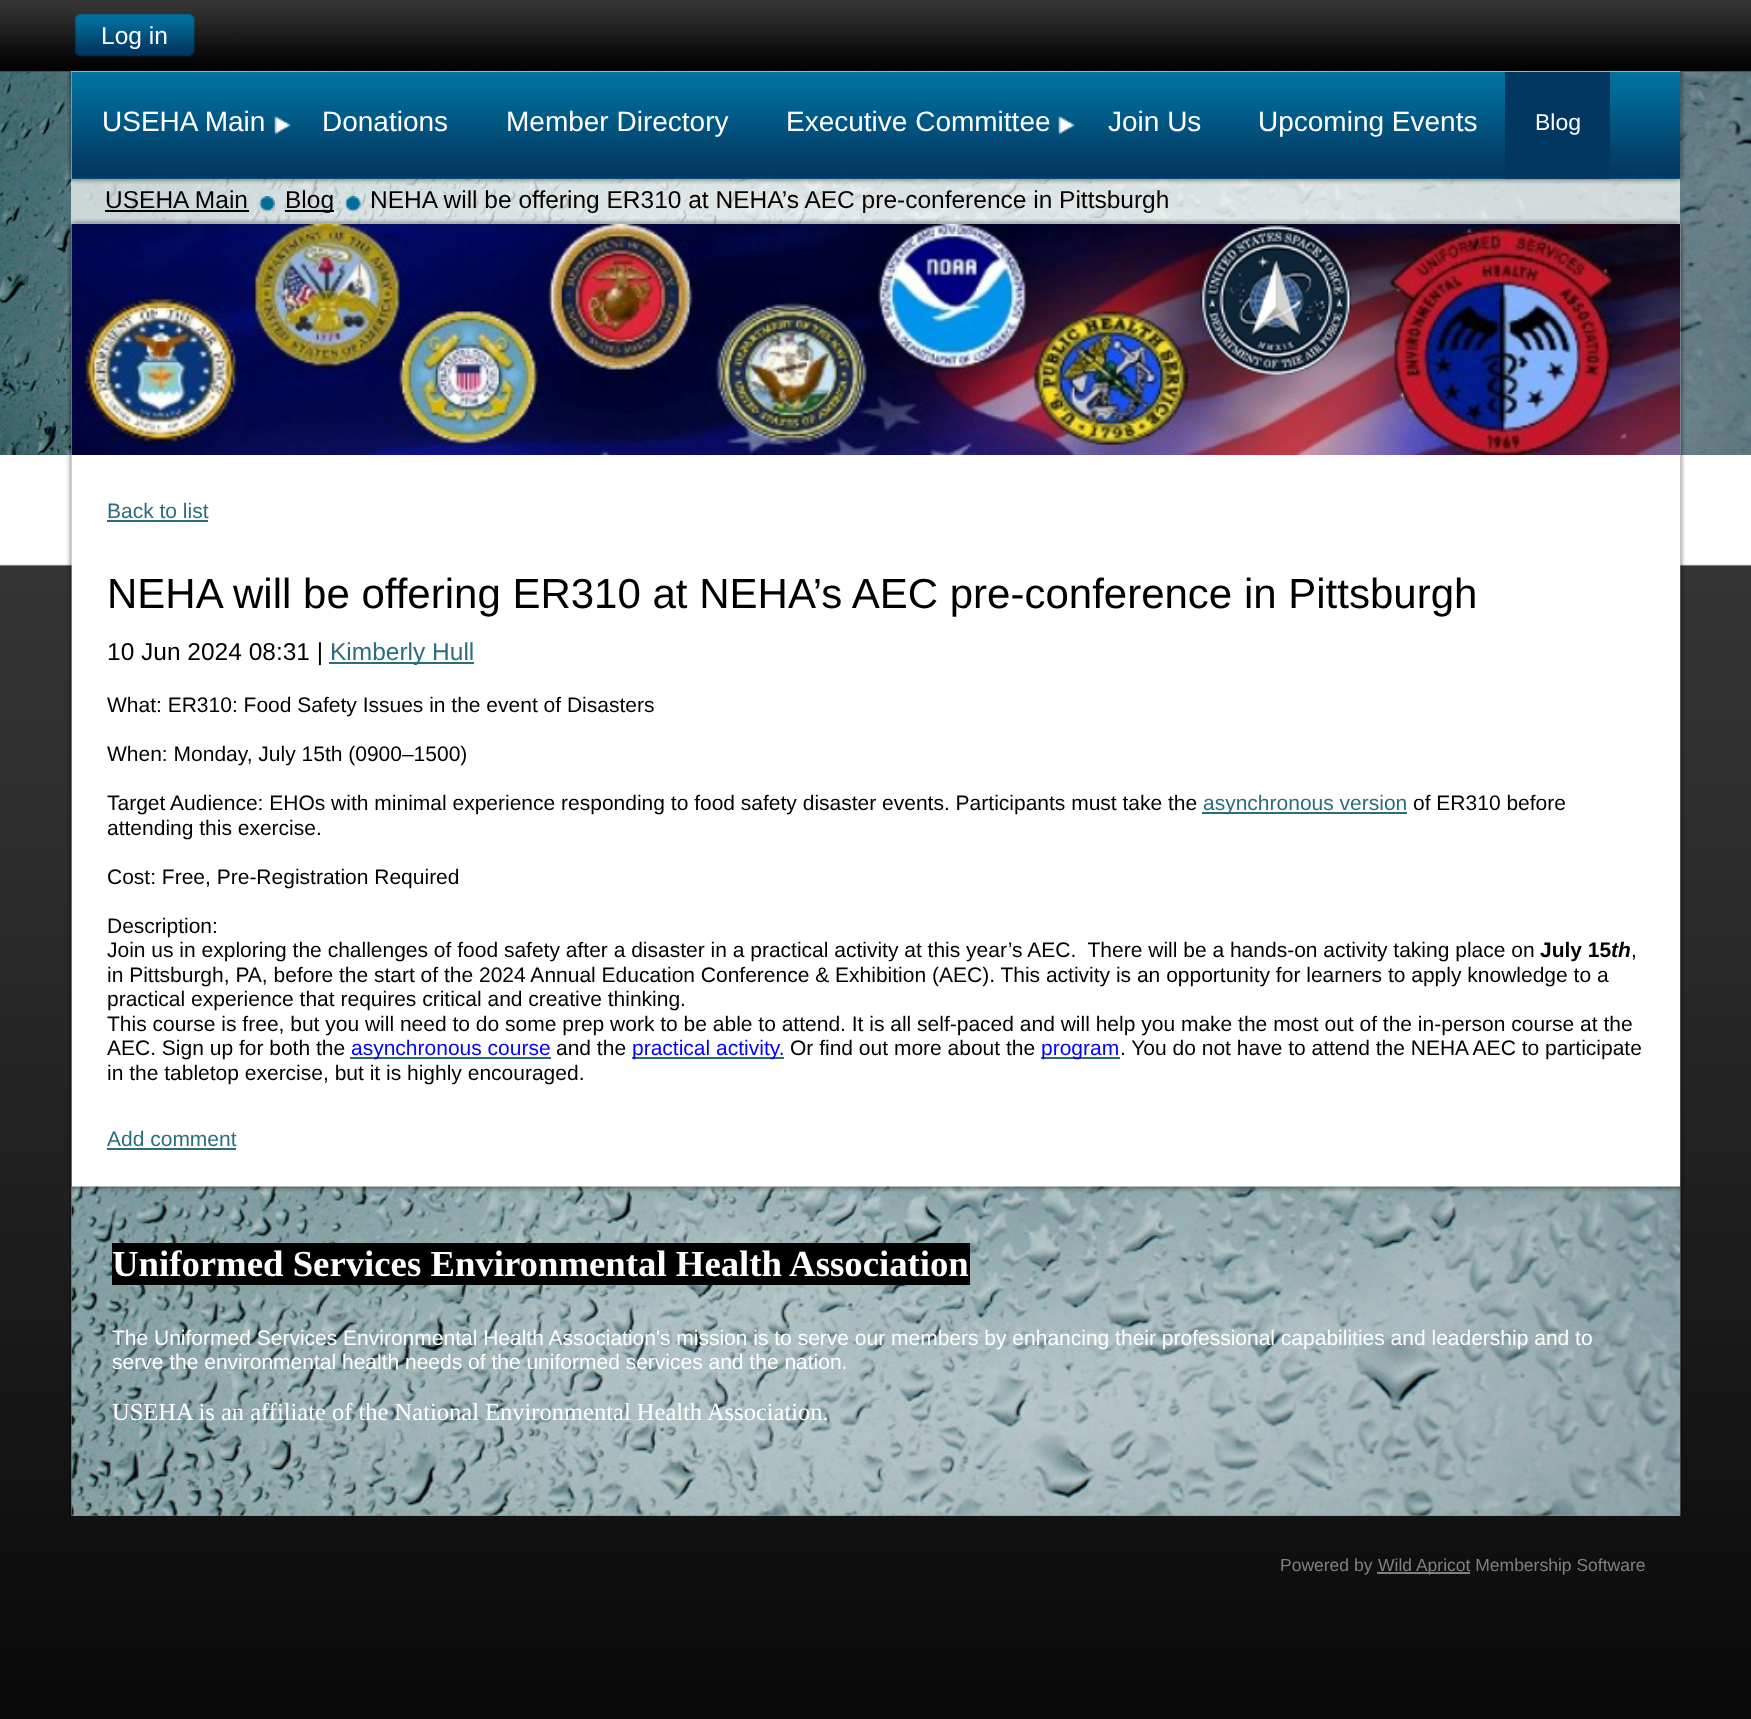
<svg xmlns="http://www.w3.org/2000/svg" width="1751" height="1719">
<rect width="100%" height="100%" fill="#fff"/>
<image x="0" y="71" width="1751" height="1648" href="media/1.png"/>
<image x="0" y="0" width="1751" height="72" href="media/2.png"/>
<image x="73" y="13" width="122" height="44" href="media/3.png"/>
<text x="101" y="44" style="font-family:Liberation Sans;font-size:24.5px;fill:#fff">Log in</text>
<image x="0" y="71" width="1751" height="384" href="media/4.png"/>
<rect x="71" y="71" width="1609" height="384" fill="#fffffeb3"/>
<image x="67" y="71" width="1618" height="113" href="media/5.png"/>
<rect x="72" y="178" width="1608" height="1" fill="#01719f"/>
<image x="71" y="71" width="1609" height="108" href="media/6.png"/>
<image x="274" y="115" width="17" height="20" href="media/7.png"/>
<text x="102" y="131" style="font-family:Liberation Sans;font-size:28px;fill:#fff">USEHA Main</text>
<text x="322" y="131" style="font-family:Liberation Sans;font-size:28px;fill:#fff">Donations</text>
<text x="506" y="131" style="font-family:Liberation Sans;font-size:28px;fill:#fff">Member Directory</text>
<image x="1058" y="115" width="17" height="20" href="media/7.png"/>
<text x="786" y="131" style="font-family:Liberation Sans;font-size:28px;fill:#fff">Executive Committee</text>
<text x="1108" y="131" style="font-family:Liberation Sans;font-size:28px;fill:#fff">Join Us</text>
<text x="1258" y="131" style="font-family:Liberation Sans;font-size:28px;fill:#fff">Upcoming Events</text>
<rect x="1505" y="72" width="105" height="107" fill="#023761"/>
<text x="1535" y="130" style="font-family:Liberation Sans;font-size:23px;fill:#fff">Blog</text>
<image x="259" y="196" width="16" height="16" href="media/8.png"/>
<text x="105" y="208" style="font-family:Liberation Sans;font-size:24.5px;fill:#000">USEHA Main</text>
<rect x="105" y="210" width="144" height="2" fill="#000"/>
<image x="344" y="196" width="17" height="16" href="media/9.png"/>
<rect x="285" y="210" width="49" height="2" fill="#000"/>
<text x="285" y="208" style="font-family:Liberation Sans;font-size:24.5px;fill:#000">Blog</text>
<text x="370" y="208" style="font-family:Liberation Sans;font-size:24.5px;fill:#000">NEHA will be offering ER310 at NEHA’s AEC pre-conference in Pittsburgh</text>
<image x="67" y="219" width="1618" height="236" href="media/10.png"/>
<image x="71" y="224" width="1609" height="231" href="media/11.png"/>
<image x="71" y="224" width="1" height="231" href="media/12.png"/>
<image x="66" y="455" width="1619" height="732" href="media/13.png"/>
<rect x="72" y="455" width="1608" height="732" fill="#fff"/>
<text x="107" y="518" style="font-family:Liberation Sans;font-size:21px;fill:#2c6d7b">Back to list</text>
<rect x="107" y="520" width="101" height="2" fill="#2c6d7b"/>
<text x="107" y="608" style="font-family:Liberation Sans;font-size:42px;fill:#000">NEHA will be offering ER310 at NEHA’s AEC pre-conference in Pittsburgh</text>
<text x="107" y="660" style="font-family:Liberation Sans;font-size:24.5px;fill:#000">10 Jun 2024 08:31 |</text>
<rect x="329" y="662" width="145" height="2" fill="#2c6d7b"/>
<text x="330" y="660" style="font-family:Liberation Sans;font-size:24.5px;fill:#2c6d7b">Kimberly Hull</text>
<text x="107" y="712" style="font-family:Liberation Sans;font-size:21px;fill:#000">What: ER310: Food Safety Issues in the event of Disasters</text>
<text x="107" y="761" style="font-family:Liberation Sans;font-size:21px;fill:#000">When: Monday, July 15th (0900–1500)</text>
<text x="107" y="810" style="font-family:Liberation Sans;font-size:21px;fill:#000">Target Audience: EHOs with minimal experience responding to food safety disaster events. Participants must take the</text>
<rect x="1202" y="812" width="205" height="2" fill="#2c6d7b"/>
<text x="1203" y="810" style="font-family:Liberation Sans;font-size:21px;fill:#2c6d7b">asynchronous version</text>
<text x="1413" y="810" style="font-family:Liberation Sans;font-size:21px;fill:#000">of ER310 before</text>
<text x="107" y="835" style="font-family:Liberation Sans;font-size:21px;fill:#000">attending this exercise.</text>
<text x="107" y="884" style="font-family:Liberation Sans;font-size:21px;fill:#000">Cost: Free, Pre-Registration Required</text>
<text x="107" y="933" style="font-family:Liberation Sans;font-size:21px;fill:#000">Description:</text>
<text x="107" y="957" style="font-family:Liberation Sans;font-size:21px;fill:#000" xml:space="preserve">Join us in exploring the challenges of food safety after a disaster in a practical activity at this year’s AEC.  There will be a hands-on activity taking place on</text>
<text x="1540" y="957" style="font-family:Liberation Sans;font-size:21px;font-weight:bold;fill:#000">July 15</text>
<text x="1611" y="957" style="font-family:Liberation Sans;font-size:21px;font-weight:bold;font-style:italic;fill:#000">th</text>
<text x="1631" y="957" style="font-family:Liberation Sans;font-size:21px;fill:#000">,</text>
<text x="107" y="982" style="font-family:Liberation Sans;font-size:21px;fill:#000">in Pittsburgh, PA, before the start of the 2024 Annual Education Conference &amp; Exhibition (AEC). This activity is an opportunity for learners to apply knowledge to a</text>
<text x="107" y="1006" style="font-family:Liberation Sans;font-size:21px;fill:#000">practical experience that requires critical and creative thinking.</text>
<text x="107" y="1031" style="font-family:Liberation Sans;font-size:21px;fill:#000">This course is free, but you will need to do some prep work to be able to attend. It is all self-paced and will help you make the most out of the in-person course at the</text>
<text x="107" y="1055" style="font-family:Liberation Sans;font-size:21px;fill:#000">AEC. Sign up for both the</text>
<rect x="350" y="1057" width="201" height="2" fill="#2c6d7b"/>
<text x="351" y="1055" style="font-family:Liberation Sans;font-size:21px;fill:#00f">asynchronous course</text>
<text x="556" y="1055" style="font-family:Liberation Sans;font-size:21px;fill:#000">and the</text>
<rect x="632" y="1057" width="152" height="2" fill="#2c6d7b"/>
<text x="632" y="1055" style="font-family:Liberation Sans;font-size:21px;fill:#00f">practical activity.</text>
<text x="790" y="1055" style="font-family:Liberation Sans;font-size:21px;fill:#000">Or find out more about the</text>
<rect x="1041" y="1057" width="79" height="2" fill="#2c6d7b"/>
<text x="1041" y="1055" style="font-family:Liberation Sans;font-size:21px;fill:#00f">program</text>
<text x="1120" y="1055" style="font-family:Liberation Sans;font-size:21px;fill:#000">. You do not have to attend the NEHA AEC to participate</text>
<text x="107" y="1080" style="font-family:Liberation Sans;font-size:21px;fill:#000">in the tabletop exercise, but it is highly encouraged.</text>
<text x="107" y="1146" style="font-family:Liberation Sans;font-size:21px;fill:#2c6d7b">Add comment</text>
<rect x="107" y="1148" width="129" height="2" fill="#2c6d7b"/>
<image x="69" y="1186" width="1614" height="330" href="media/14.png"/>
<image x="71" y="1186" width="1609" height="330" href="media/15.png"/>
<rect x="112" y="1243" width="858" height="42" fill="#000"/>
<text x="112" y="1276" style="font-family:Liberation Serif;font-size:36.75px;font-weight:bold;fill:#fff">Uniformed Services Environmental Health Association</text>
<text x="112" y="1345" style="font-family:Liberation Sans;font-size:21px;fill:#fff">The Uniformed Services Environmental Health Association's mission is to serve our members by enhancing their professional capabilities and leadership and to</text>
<text x="112" y="1369" style="font-family:Liberation Sans;font-size:21px;fill:#fff">serve the environmental health needs of the uniformed services and the nation.</text>
<text x="112" y="1420" style="font-family:Liberation Serif;font-size:24.5px;fill:#fff">USEHA is an affiliate of the National Environmental Health Association.</text>
<text x="1280" y="1571" style="font-family:Liberation Sans;font-size:17.5px;fill:#808080">Powered by</text>
<rect x="1377" y="1572" width="93" height="2" fill="#808080"/>
<text x="1378" y="1571" style="font-family:Liberation Sans;font-size:17.5px;fill:#808080">Wild Apricot Membership Software</text>
</svg>
